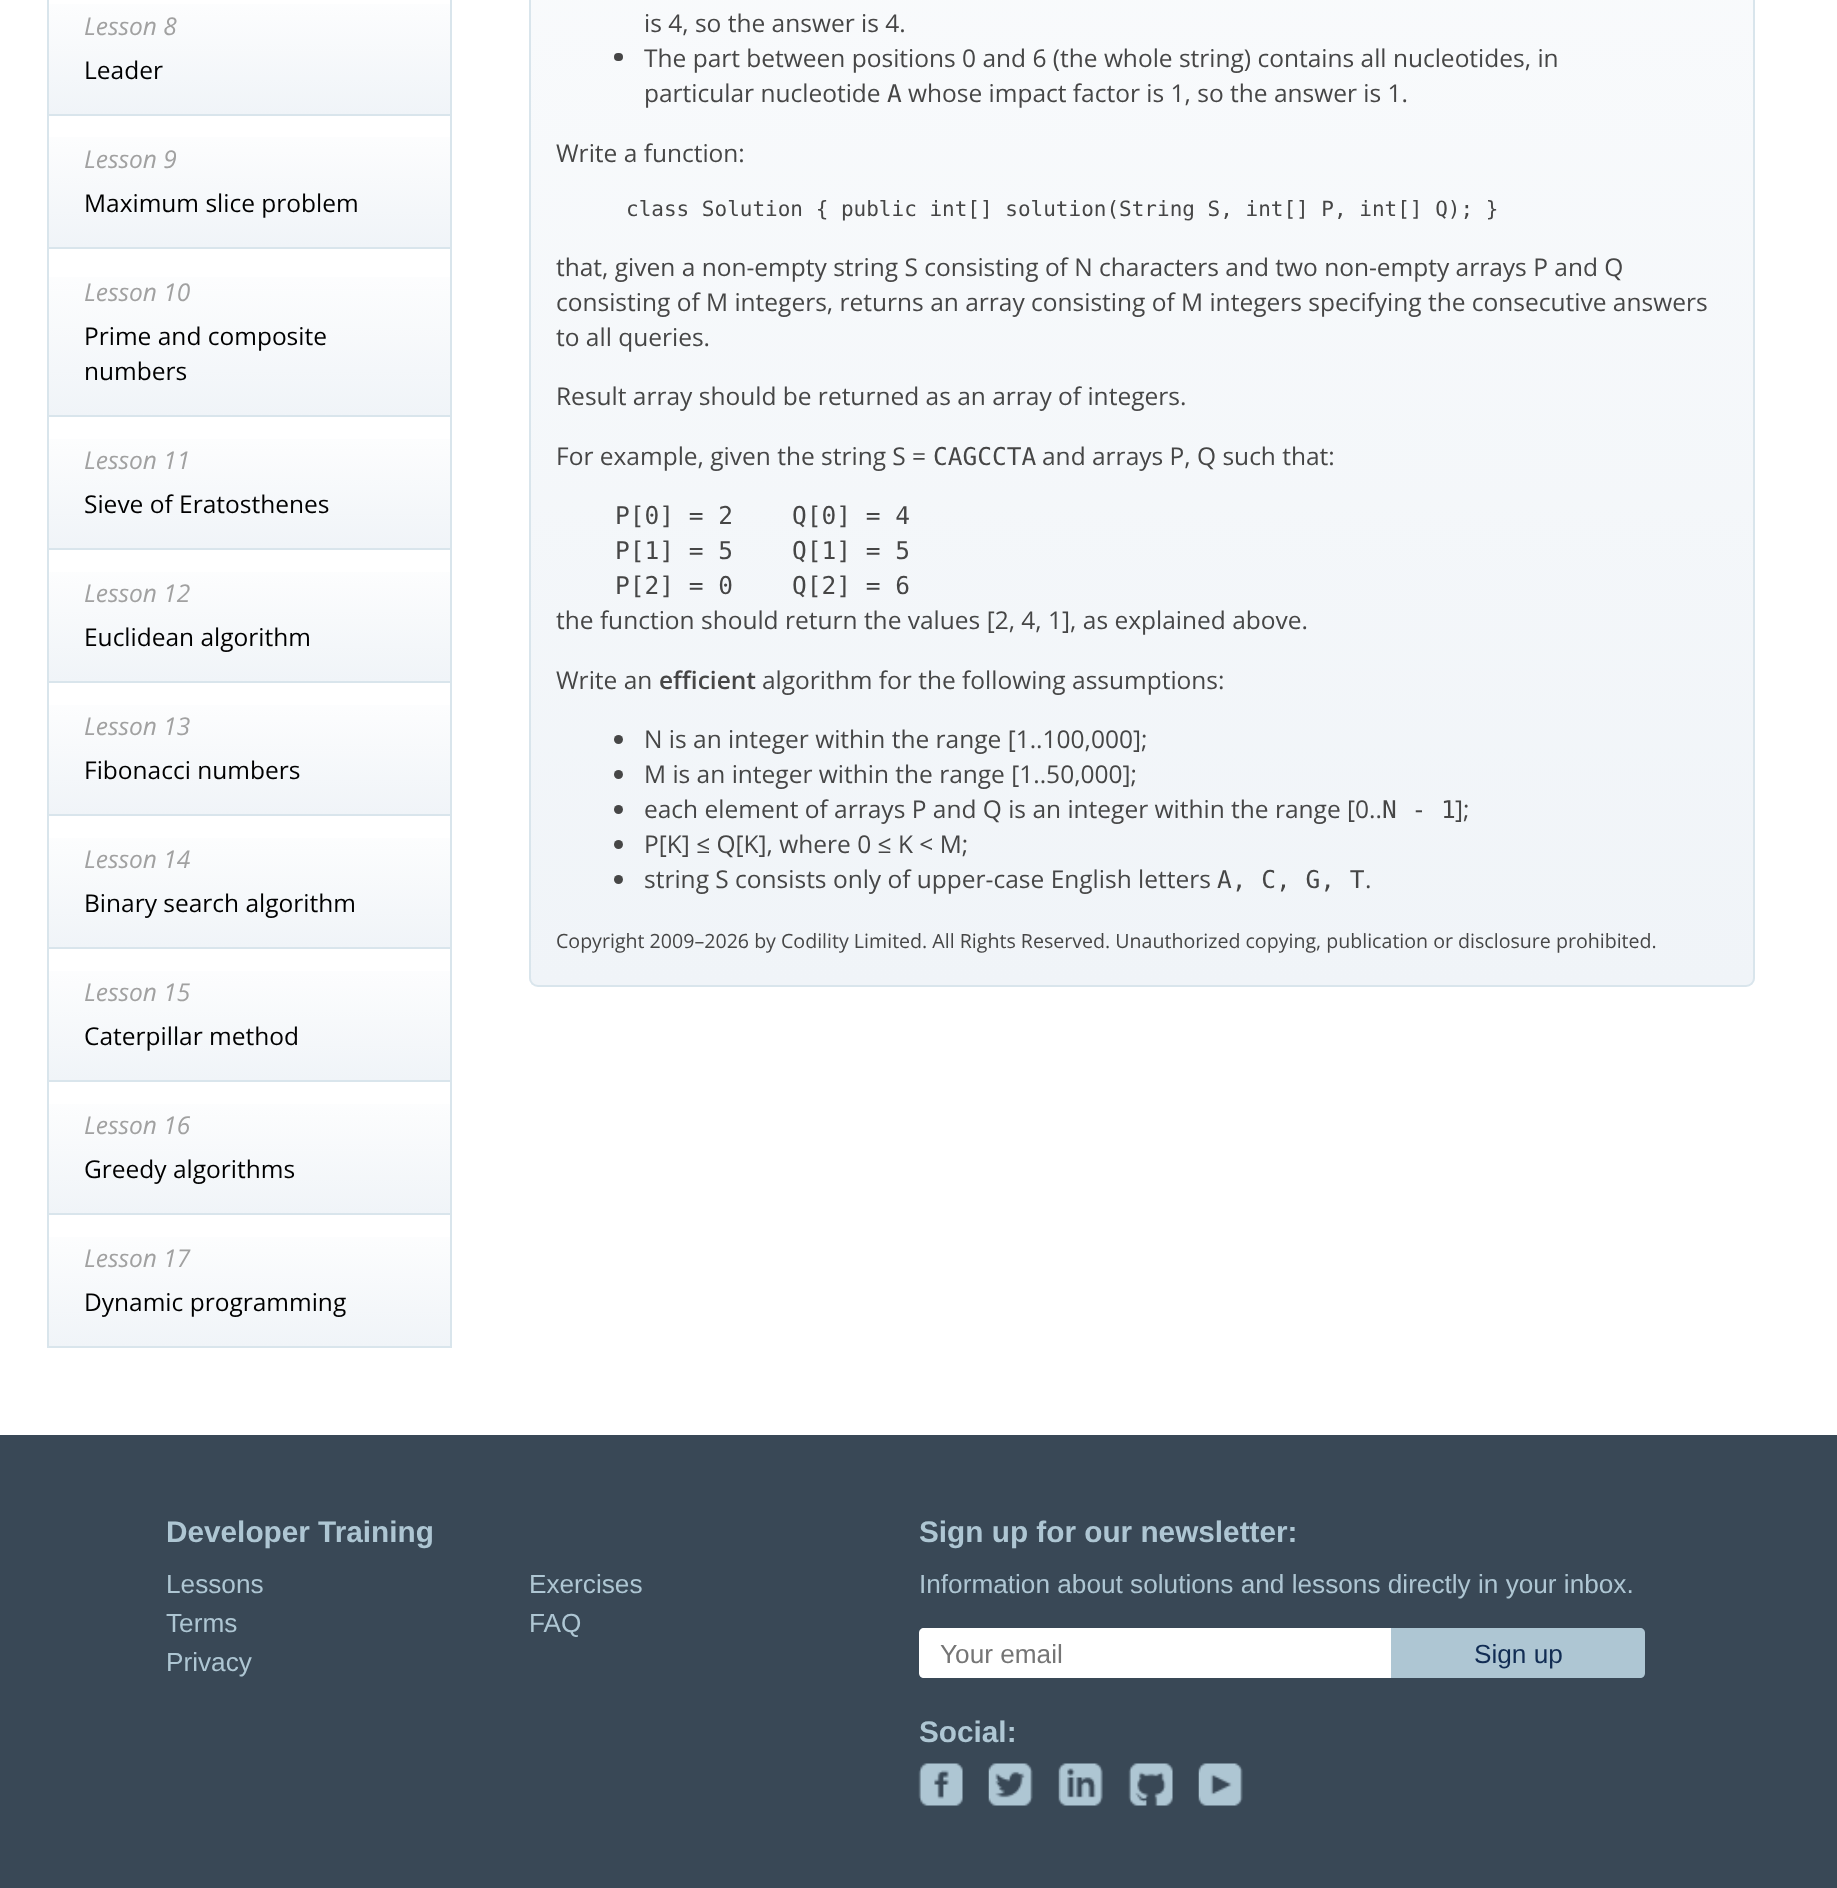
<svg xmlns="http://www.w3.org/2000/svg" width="1837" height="1888">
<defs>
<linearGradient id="g1" gradientUnits="userSpaceOnUse" x1="249" y1="-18" x2="249" y2="114"><stop offset="0" stop-color="#fff"/><stop offset="1" stop-color="#f0f4f8"/></linearGradient>
<linearGradient id="g2" gradientUnits="userSpaceOnUse" x1="249" y1="115" x2="249" y2="247"><stop offset="0" stop-color="#fff"/><stop offset="1" stop-color="#f0f4f8"/></linearGradient>
<linearGradient id="g3" gradientUnits="userSpaceOnUse" x1="249" y1="249" x2="249" y2="415"><stop offset="0" stop-color="#fff"/><stop offset="1" stop-color="#f0f4f8"/></linearGradient>
<linearGradient id="g4" gradientUnits="userSpaceOnUse" x1="249" y1="417" x2="249" y2="548"><stop offset="0" stop-color="#fff"/><stop offset="1" stop-color="#f0f4f8"/></linearGradient>
<linearGradient id="g5" gradientUnits="userSpaceOnUse" x1="249" y1="550" x2="249" y2="681"><stop offset="0" stop-color="#fff"/><stop offset="1" stop-color="#f0f4f8"/></linearGradient>
<linearGradient id="g6" gradientUnits="userSpaceOnUse" x1="249" y1="683" x2="249" y2="814"><stop offset="0" stop-color="#fff"/><stop offset="1" stop-color="#f0f4f8"/></linearGradient>
<linearGradient id="g7" gradientUnits="userSpaceOnUse" x1="249" y1="816" x2="249" y2="947"><stop offset="0" stop-color="#fff"/><stop offset="1" stop-color="#f0f4f8"/></linearGradient>
<linearGradient id="g8" gradientUnits="userSpaceOnUse" x1="249" y1="949" x2="249" y2="1080"><stop offset="0" stop-color="#fff"/><stop offset="1" stop-color="#f0f4f8"/></linearGradient>
<linearGradient id="g9" gradientUnits="userSpaceOnUse" x1="249" y1="1082" x2="249" y2="1213"><stop offset="0" stop-color="#fff"/><stop offset="1" stop-color="#f0f4f8"/></linearGradient>
<linearGradient id="g10" gradientUnits="userSpaceOnUse" x1="249" y1="1215" x2="249" y2="1346"><stop offset="0" stop-color="#fff"/><stop offset="1" stop-color="#f0f4f8"/></linearGradient>
<clipPath id="clip1"><rect x="529" y="-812" width="1226" height="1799" rx="9"/></clipPath>
<linearGradient id="g11" gradientUnits="userSpaceOnUse" x1="1142" y1="-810" x2="1142" y2="985"><stop offset="0" stop-color="#fff"/><stop offset="1" stop-color="#f0f4f8"/></linearGradient>
</defs>
<rect width="100%" height="100%" fill="#fff"/>
<rect x="49" y="4" width="401" height="110" fill="url(#g1)"/>
<rect x="450" width="2" height="1348" fill="#d9e5ec"/>
<rect x="47" y="114" width="405" height="2" fill="#d9e5ec"/>
<rect x="47" width="2" height="116" fill="#d9e5ec"/>
<text x="84" y="35" style="font-family:Open Sans;font-size:24.5px;font-style:italic;fill:#a1a1a1">Lesson 8</text>
<text x="84" y="79" style="font-family:Open Sans;font-size:24.5px;fill:#000">Leader</text>
<rect x="49" y="137" width="401" height="110" fill="url(#g2)"/>
<rect x="47" y="247" width="405" height="2" fill="#d9e5ec"/>
<rect x="47" y="116" width="2" height="133" fill="#d9e5ec"/>
<text x="84" y="168" style="font-family:Open Sans;font-size:24.5px;font-style:italic;fill:#a1a1a1">Lesson 9</text>
<text x="84" y="212" style="font-family:Open Sans;font-size:24.5px;fill:#000">Maximum slice problem</text>
<rect x="49" y="277" width="401" height="138" fill="url(#g3)"/>
<rect x="47" y="415" width="405" height="2" fill="#d9e5ec"/>
<rect x="47" y="249" width="2" height="168" fill="#d9e5ec"/>
<text x="84" y="301" style="font-family:Open Sans;font-size:24.5px;font-style:italic;fill:#a1a1a1">Lesson 10</text>
<text x="84" y="345" style="font-family:Open Sans;font-size:24.5px;fill:#000">Prime and composite</text>
<text x="84" y="380" style="font-family:Open Sans;font-size:24.5px;fill:#000">numbers</text>
<rect x="49" y="439" width="401" height="109" fill="url(#g4)"/>
<rect x="47" y="548" width="405" height="2" fill="#d9e5ec"/>
<rect x="47" y="417" width="2" height="133" fill="#d9e5ec"/>
<text x="84" y="469" style="font-family:Open Sans;font-size:24.5px;font-style:italic;fill:#a1a1a1">Lesson 11</text>
<text x="84" y="513" style="font-family:Open Sans;font-size:24.5px;fill:#000">Sieve of Eratosthenes</text>
<rect x="49" y="572" width="401" height="109" fill="url(#g5)"/>
<rect x="47" y="681" width="405" height="2" fill="#d9e5ec"/>
<rect x="47" y="550" width="2" height="133" fill="#d9e5ec"/>
<text x="84" y="602" style="font-family:Open Sans;font-size:24.5px;font-style:italic;fill:#a1a1a1">Lesson 12</text>
<text x="84" y="646" style="font-family:Open Sans;font-size:24.5px;fill:#000">Euclidean algorithm</text>
<rect x="49" y="705" width="401" height="109" fill="url(#g6)"/>
<rect x="47" y="814" width="405" height="2" fill="#d9e5ec"/>
<rect x="47" y="683" width="2" height="133" fill="#d9e5ec"/>
<text x="84" y="735" style="font-family:Open Sans;font-size:24.5px;font-style:italic;fill:#a1a1a1">Lesson 13</text>
<text x="84" y="779" style="font-family:Open Sans;font-size:24.5px;fill:#000">Fibonacci numbers</text>
<rect x="49" y="838" width="401" height="109" fill="url(#g7)"/>
<rect x="47" y="947" width="405" height="2" fill="#d9e5ec"/>
<rect x="47" y="816" width="2" height="133" fill="#d9e5ec"/>
<text x="84" y="868" style="font-family:Open Sans;font-size:24.5px;font-style:italic;fill:#a1a1a1">Lesson 14</text>
<text x="84" y="912" style="font-family:Open Sans;font-size:24.5px;fill:#000">Binary search algorithm</text>
<rect x="49" y="971" width="401" height="109" fill="url(#g8)"/>
<rect x="47" y="1080" width="405" height="2" fill="#d9e5ec"/>
<rect x="47" y="949" width="2" height="133" fill="#d9e5ec"/>
<text x="84" y="1001" style="font-family:Open Sans;font-size:24.5px;font-style:italic;fill:#a1a1a1">Lesson 15</text>
<text x="84" y="1045" style="font-family:Open Sans;font-size:24.5px;fill:#000">Caterpillar method</text>
<rect x="49" y="1104" width="401" height="109" fill="url(#g9)"/>
<rect x="47" y="1213" width="405" height="2" fill="#d9e5ec"/>
<rect x="47" y="1082" width="2" height="133" fill="#d9e5ec"/>
<text x="84" y="1134" style="font-family:Open Sans;font-size:24.5px;font-style:italic;fill:#a1a1a1">Lesson 16</text>
<text x="84" y="1178" style="font-family:Open Sans;font-size:24.5px;fill:#000">Greedy algorithms</text>
<rect x="49" y="1237" width="401" height="109" fill="url(#g10)"/>
<rect x="47" y="1346" width="405" height="2" fill="#d9e5ec"/>
<rect x="47" y="1215" width="2" height="133" fill="#d9e5ec"/>
<text x="84" y="1267" style="font-family:Open Sans;font-size:24.5px;font-style:italic;fill:#a1a1a1">Lesson 17</text>
<text x="84" y="1311" style="font-family:Open Sans;font-size:24.5px;fill:#000">Dynamic programming</text>
<g clip-path="url(#clip1)">
<rect x="529" width="1226" height="985" fill="url(#g11)"/>
</g>
<rect x="530" y="-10" width="1224" height="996" rx="8" fill="none" stroke="#d9e5ec" stroke-width="2"/>
<text x="644" y="32" style="font-family:Open Sans;font-size:24.5px;fill:#464646">is 4, so the answer is 4.</text>
<rect x="614" y="53" width="9" height="8" rx="4" fill="#464646"/>
<text x="644" y="67" style="font-family:Open Sans;font-size:24.5px;fill:#464646">The part between positions 0 and 6 (the whole string) contains all nucleotides, in</text>
<text x="644" y="102" style="font-family:Open Sans;font-size:24.5px;fill:#464646">particular nucleotide</text>
<text x="887" y="102" style="font-family:DejaVu Sans Mono;font-size:24.5px;fill:#464646">A</text>
<text x="908" y="102" style="font-family:Open Sans;font-size:24.5px;fill:#464646">whose impact factor is 1, so the answer is 1.</text>
<text x="556" y="162" style="font-family:Open Sans;font-size:24.5px;fill:#464646">Write a function:</text>
<text x="626" y="216" style="font-family:DejaVu Sans Mono;font-size:21px;fill:#464646">class Solution { public int[] solution(String S, int[] P, int[] Q); }</text>
<text x="556" y="276" style="font-family:Open Sans;font-size:24.5px;fill:#464646">that, given a non-empty string S consisting of N characters and two non-empty arrays P and Q</text>
<text x="556" y="311" style="font-family:Open Sans;font-size:24.5px;fill:#464646">consisting of M integers, returns an array consisting of M integers specifying the consecutive answers</text>
<text x="556" y="346" style="font-family:Open Sans;font-size:24.5px;fill:#464646">to all queries.</text>
<text x="556" y="405" style="font-family:Open Sans;font-size:24.5px;fill:#464646">Result array should be returned as an array of integers.</text>
<text x="556" y="465" style="font-family:Open Sans;font-size:24.5px;fill:#464646">For example, given the string S =</text>
<text x="933" y="465" style="font-family:DejaVu Sans Mono;font-size:24.5px;fill:#464646">CAGCCTA</text>
<text x="1042" y="465" style="font-family:Open Sans;font-size:24.5px;fill:#464646">and arrays P, Q such that:</text>
<text x="615" y="524" style="font-family:DejaVu Sans Mono;font-size:24.5px;fill:#464646" xml:space="preserve">P[0] = 2    Q[0] = 4</text>
<text x="615" y="559" style="font-family:DejaVu Sans Mono;font-size:24.5px;fill:#464646" xml:space="preserve">P[1] = 5    Q[1] = 5</text>
<text x="615" y="594" style="font-family:DejaVu Sans Mono;font-size:24.5px;fill:#464646" xml:space="preserve">P[2] = 0    Q[2] = 6</text>
<text x="556" y="629" style="font-family:Open Sans;font-size:24.5px;fill:#464646">the function should return the values [2, 4, 1], as explained above.</text>
<text x="556" y="689" style="font-family:Open Sans;font-size:24.5px;fill:#464646">Write an</text>
<text x="659" y="689" style="font-family:Open Sans;font-size:24.5px;font-weight:600;fill:#464646">efficient</text>
<text x="762" y="689" style="font-family:Open Sans;font-size:24.5px;fill:#464646">algorithm for the following assumptions:</text>
<circle cx="618.5" cy="739.5" r="4.5" fill="#464646"/>
<text x="644" y="748" style="font-family:Open Sans;font-size:24.5px;fill:#464646">N is an integer within the range [1..100,000];</text>
<circle cx="618.5" cy="774.5" r="4.5" fill="#464646"/>
<text x="644" y="783" style="font-family:Open Sans;font-size:24.5px;fill:#464646">M is an integer within the range [1..50,000];</text>
<circle cx="618.5" cy="809.5" r="4.5" fill="#464646"/>
<text x="644" y="818" style="font-family:Open Sans;font-size:24.5px;fill:#464646">each element of arrays P and Q is an integer within the range [0..</text>
<text x="1382" y="818" style="font-family:DejaVu Sans Mono;font-size:24.5px;fill:#464646">N - 1</text>
<text x="1455" y="818" style="font-family:Open Sans;font-size:24.5px;fill:#464646">];</text>
<circle cx="618.5" cy="844.5" r="4.5" fill="#464646"/>
<text x="644" y="853" style="font-family:Open Sans;font-size:24.5px;fill:#464646">P[K] ≤ Q[K], where 0 ≤ K &lt; M;</text>
<circle cx="618.5" cy="879.5" r="4.5" fill="#464646"/>
<text x="644" y="888" style="font-family:Open Sans;font-size:24.5px;fill:#464646">string S consists only of upper-case English letters</text>
<text x="1217" y="888" style="font-family:DejaVu Sans Mono;font-size:24.5px;fill:#464646">A, C, G, T</text>
<text x="1365" y="888" style="font-family:Open Sans;font-size:24.5px;fill:#464646">.</text>
<text x="556" y="948" style="font-family:Open Sans;font-size:19.6px;fill:#464646">Copyright 2009–2026 by Codility Limited. All Rights Reserved. Unauthorized copying, publication or disclosure prohibited.</text>
<rect y="1435" width="1837" height="453" fill="#394856"/>
<text x="166" y="1542" style="font-family:Liberation Sans;font-size:29.75px;font-weight:bold;fill:#aec6d3">Developer Training</text>
<text x="166" y="1593" style="font-family:Liberation Sans;font-size:26.2px;fill:#aec6d3">Lessons</text>
<text x="529" y="1593" style="font-family:Liberation Sans;font-size:26.2px;fill:#aec6d3">Exercises</text>
<text x="166" y="1632" style="font-family:Liberation Sans;font-size:26.2px;fill:#aec6d3">Terms</text>
<text x="529" y="1632" style="font-family:Liberation Sans;font-size:26.2px;fill:#aec6d3">FAQ</text>
<text x="166" y="1671" style="font-family:Liberation Sans;font-size:26.2px;fill:#aec6d3">Privacy</text>
<text x="919" y="1542" style="font-family:Liberation Sans;font-size:29.75px;font-weight:bold;fill:#aec6d3">Sign up for our newsletter:</text>
<text x="919" y="1593" style="font-family:Liberation Sans;font-size:26.2px;fill:#aec6d3">Information about solutions and lessons directly in your inbox.</text>
<path d="M924 1628h467v50h-467c-3 0-5-2-5-5v-40c0-3 2-5 5-5z" fill="#fff"/>
<text x="940" y="1663" style="font-family:Liberation Sans;font-size:26.2px;fill:#757575">Your email</text>
<path d="M1391 1628h249c3 0 5 2 5 5v40c0 3-2 5-5 5h-249z" fill="#aec6d3"/>
<text x="1474" y="1663" style="font-family:Liberation Sans;font-size:26.2px;fill:#112c53">Sign up</text>
<text x="919" y="1742" style="font-family:Liberation Sans;font-size:29.75px;font-weight:bold;fill:#aec6d3">Social:</text>
<image x="918" y="1763" width="45" height="43" href="media/1.png"/>
<image x="988" y="1763" width="45" height="43" href="media/2.png"/>
<image x="1058" y="1763" width="45" height="43" href="media/3.png"/>
<image x="1128" y="1763" width="45" height="43" href="media/4.png"/>
<image x="1198" y="1763" width="45" height="43" href="media/5.png"/>
</svg>
